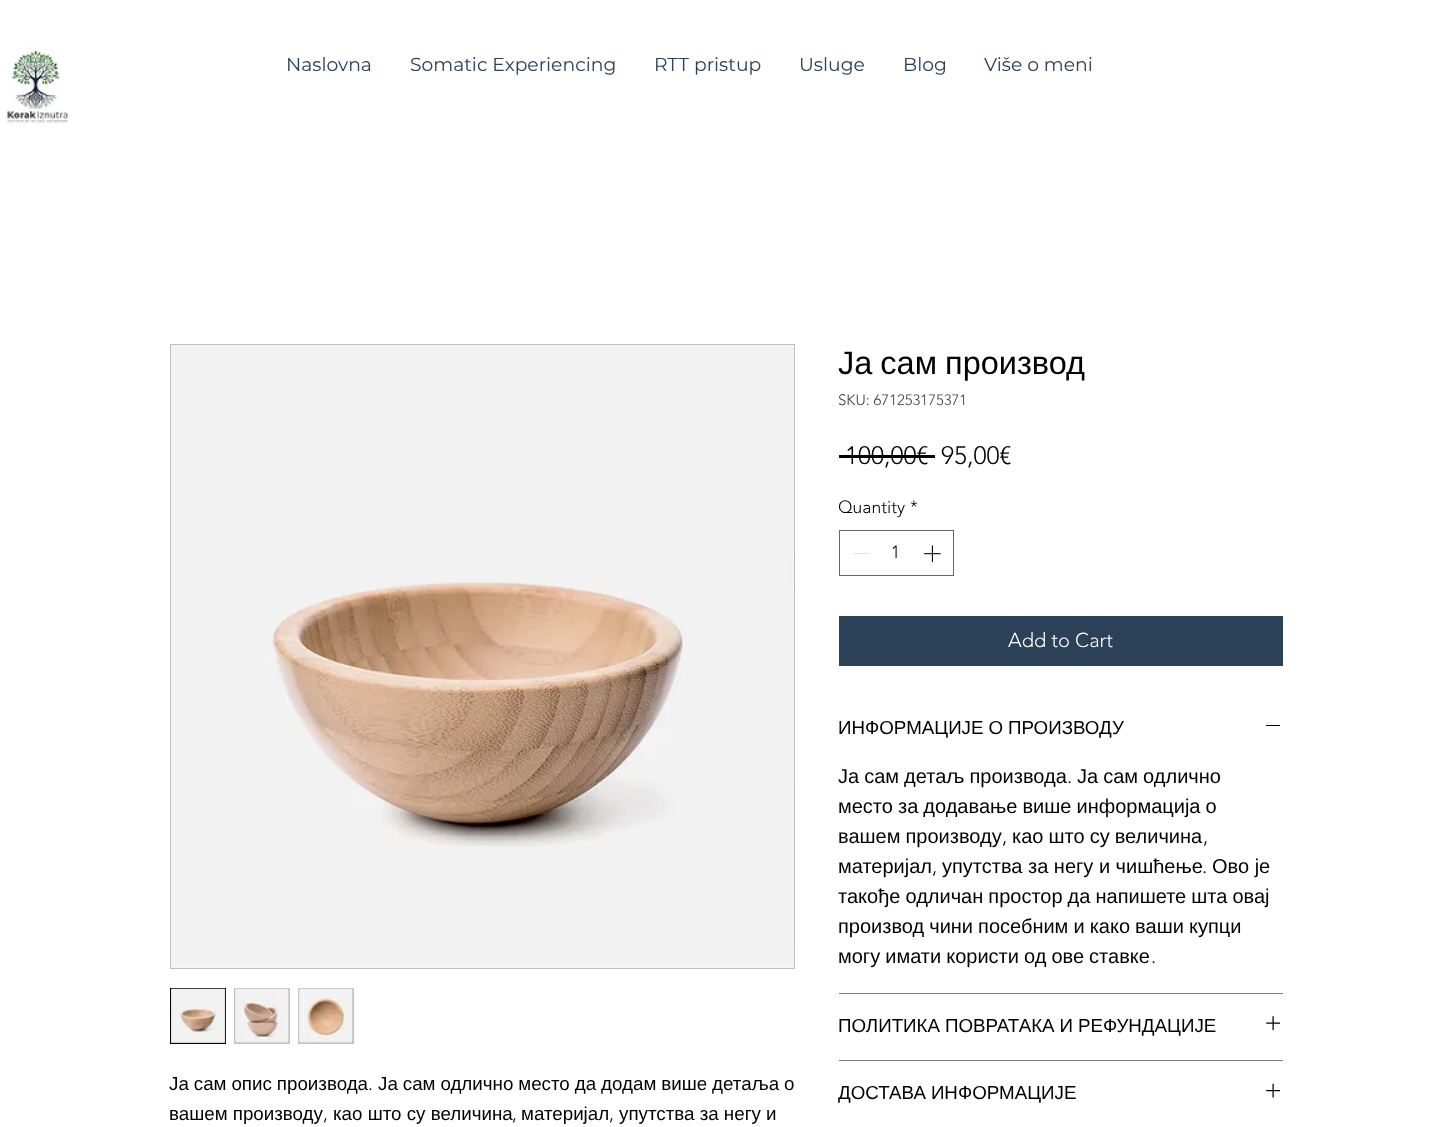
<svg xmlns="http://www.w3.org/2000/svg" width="1451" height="1127">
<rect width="100%" height="100%" fill="#fff"/>
<image x="7" y="45" width="61" height="80" href="media/1.png"/>
<text x="286" y="71" style="font-family:Montserrat;font-size:18.75px;fill:#2b4157">Naslovna</text>
<text x="410" y="71" style="font-family:Montserrat;font-size:18.75px;fill:#2b4157">Somatic Experiencing</text>
<text x="654" y="71" style="font-family:Montserrat;font-size:18.75px;fill:#2b4157">RTT pristup</text>
<text x="799" y="71" style="font-family:Montserrat;font-size:18.75px;fill:#2b4157">Usluge</text>
<text x="903" y="71" style="font-family:Montserrat;font-size:18.75px;fill:#2b4157">Blog</text>
<text x="984" y="71" style="font-family:Montserrat;font-size:18.75px;fill:#2b4157">Više o meni</text>
<rect x="170.5" y="344.5" width="624" height="624" fill="none" stroke="#bfbfbf"/>
<image x="171" y="345" width="623" height="623" href="media/2.png"/>
<rect x="170.5" y="988.5" width="55" height="55" fill="#bfbfbf" stroke="#000"/>
<image x="171" y="988" width="55" height="55" href="media/3.png"/>
<rect x="234" y="988" width="56" height="56" fill="#bfbfbf"/>
<image x="235" y="988" width="54" height="55" href="media/4.png"/>
<rect x="298" y="988" width="56" height="56" fill="#bfbfbf"/>
<image x="298" y="988" width="55" height="55" href="media/5.png"/>
<text x="169" y="1090" word-spacing="-0.25" style="font-family:Liberation Sans;font-size:18.75px;fill:#000">Ја сам опис производа</text>
<text x="368" y="1090" style="font-family:'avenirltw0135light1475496';font-size:18.75px;font-weight:300;fill:#000">.</text>
<text x="378" y="1090" word-spacing="-0.25" style="font-family:Liberation Sans;font-size:18.75px;fill:#000">Ја сам одлично место да додам више детаља о</text>
<text x="169" y="1120" style="font-family:Liberation Sans;font-size:18.75px;fill:#000">вашем производу</text>
<text x="323" y="1120" style="font-family:'avenirltw0135light1475496';font-size:18.75px;font-weight:300;fill:#000">,</text>
<text x="333" y="1120" style="font-family:Liberation Sans;font-size:18.75px;fill:#000">као што су величина</text>
<text x="512" y="1120" style="font-family:'avenirltw0135light1475496';font-size:18.75px;font-weight:300;fill:#000">,</text>
<text x="521" y="1120" style="font-family:Liberation Sans;font-size:18.75px;fill:#000">материјал</text>
<text x="609" y="1120" style="font-family:'avenirltw0135light1475496';font-size:18.75px;font-weight:300;fill:#000">,</text>
<text x="619" y="1120" style="font-family:Liberation Sans;font-size:18.75px;fill:#000">упутства за негу и</text>
<text x="838" y="374" word-spacing="-1" style="font-family:Liberation Sans;font-size:32.5px;fill:#000">Ја сам производ</text>
<text x="838" y="405" style="font-family:'avenirltw0135light1475496';font-size:15px;font-weight:300;fill:#404040">SKU: 671253175371</text>
<text x="845" y="464" style="font-family:'avenirltw0135light1475496';font-size:25px;font-weight:300;fill:#000">100,00€</text>
<rect x="839" y="455" width="96" height="3" fill="#000"/>
<text x="941" y="464" style="font-family:'avenirltw0135light1475496';font-size:25px;font-weight:300;fill:#000">95,00€</text>
<text x="838" y="513" style="font-family:'avenirltw0135light1475496';font-size:17.5px;font-weight:300;fill:#000">Quantity</text>
<text x="910" y="513" style="font-family:'avenirltw0135light1475496';font-size:17.5px;font-weight:300;fill:#000">*</text>
<rect x="839.5" y="530.5" width="114" height="45" fill="none" stroke="#666"/>
<rect x="853" y="553" width="17" height="1" fill="#e3e3e3"/>
<text x="891" y="558" style="font-family:'avenirltw0135light1475496';font-size:17.5px;font-weight:300;fill:#000">1</text>
<image x="924" y="545" width="17" height="17" href="media/6.png"/>
<rect x="839" y="616" width="444" height="50" fill="#2b4157"/>
<text x="1008" y="647" style="font-family:'avenirltw0135light1475496';font-size:20px;font-weight:300;fill:#fff">Add to Cart</text>
<rect x="839" y="993" width="444" height="1" fill="#808080"/>
<text x="838" y="734" word-spacing="-0.25" style="font-family:Liberation Sans;font-size:18.75px;fill:#000">ИНФОРМАЦИЈЕ О ПРОИЗВОДУ</text>
<rect x="1266" y="725" width="14" height="1" fill="#000"/>
<text x="838" y="783" word-spacing="-0.5" style="font-family:Liberation Sans;font-size:20px;fill:#000">Ја сам детаљ производа</text>
<text x="1067" y="783" style="font-family:'avenirltw0135light1475496';font-size:20px;font-weight:300;fill:#000">.</text>
<text x="1077" y="783" word-spacing="-0.5" style="font-family:Liberation Sans;font-size:20px;fill:#000">Ја сам одлично</text>
<text x="838" y="813" word-spacing="-0.5" style="font-family:Liberation Sans;font-size:20px;fill:#000">место за додавање више информација о</text>
<text x="838" y="843" word-spacing="-0.5" style="font-family:Liberation Sans;font-size:20px;fill:#000">вашем производу</text>
<text x="1002" y="843" style="font-family:'avenirltw0135light1475496';font-size:20px;font-weight:300;fill:#000">,</text>
<text x="1012" y="843" word-spacing="-0.5" style="font-family:Liberation Sans;font-size:20px;fill:#000">као што су величина</text>
<text x="1203" y="843" style="font-family:'avenirltw0135light1475496';font-size:20px;font-weight:300;fill:#000">,</text>
<text x="838" y="873" style="font-family:Liberation Sans;font-size:20px;fill:#000">материјал</text>
<text x="932" y="873" style="font-family:'avenirltw0135light1475496';font-size:20px;font-weight:300;fill:#000">,</text>
<text x="942" y="873" style="font-family:Liberation Sans;font-size:20px;fill:#000">упутства за негу и чишћење</text>
<text x="1202" y="873" style="font-family:'avenirltw0135light1475496';font-size:20px;font-weight:300;fill:#000">.</text>
<text x="1212" y="873" style="font-family:Liberation Sans;font-size:20px;fill:#000">Ово је</text>
<text x="838" y="903" word-spacing="-0.5" style="font-family:Liberation Sans;font-size:20px;fill:#000">такође одличан простор да напишете шта овај</text>
<text x="838" y="933" word-spacing="-0.5" style="font-family:Liberation Sans;font-size:20px;fill:#000">производ чини посебним и како ваши купци</text>
<text x="838" y="963" word-spacing="-0.5" style="font-family:Liberation Sans;font-size:20px;fill:#000">могу имати користи од ове ставке</text>
<text x="1151" y="963" style="font-family:'avenirltw0135light1475496';font-size:20px;font-weight:300;fill:#000">.</text>
<rect x="839" y="1060" width="444" height="1" fill="#808080"/>
<text x="838" y="1032" word-spacing="-0.25" style="font-family:Liberation Sans;font-size:18.75px;fill:#000">ПОЛИТИКА ПОВРАТАКА И РЕФУНДАЦИЈЕ</text>
<image x="1266" y="1016" width="14" height="14" href="media/7.png"/>
<text x="838" y="1099" word-spacing="-0.25" style="font-family:Liberation Sans;font-size:18.75px;fill:#000">ДОСТАВА ИНФОРМАЦИЈЕ</text>
<image x="1266" y="1083" width="14" height="15" href="media/8.png"/>
</svg>
